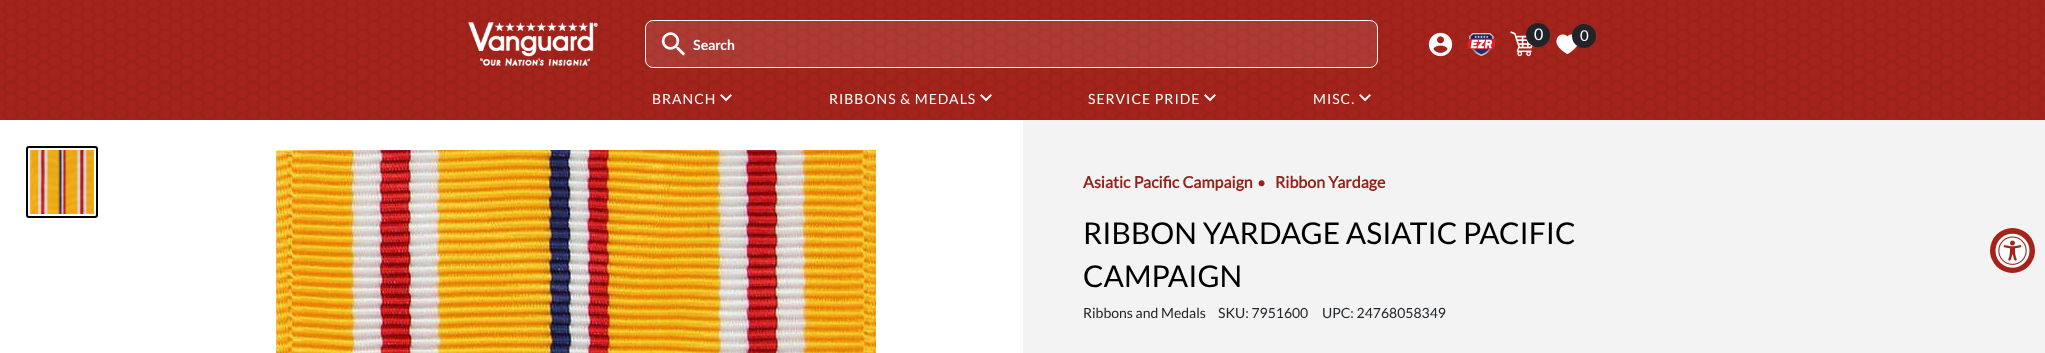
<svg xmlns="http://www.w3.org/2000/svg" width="2045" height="353">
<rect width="100%" height="100%" fill="#fff"/>
<rect width="2045" height="120" fill="#a4241c"/>
<image x="0" y="0" width="2045" height="120" href="media/1.png"/>
<image x="468" y="22" width="130" height="44" href="media/2.png"/>
<image x="1428" y="32" width="25" height="25" href="media/3.png"/>
<image x="1467" y="33" width="29" height="23" href="media/4.png"/>
<image x="1510" y="31" width="23" height="26" href="media/5.png"/>
<circle cx="1538" cy="35" r="12" fill="#212529"/>
<text x="1534" y="40" style="font-family:Lato;font-size:16px;fill:#fff">0</text>
<image x="1556" y="34" width="22" height="20" href="media/6.png"/>
<circle cx="1584" cy="36" r="12" fill="#212529"/>
<text x="1580" y="41" style="font-family:Lato;font-size:15px;fill:#fff">0</text>
<rect x="645.5" y="20.5" width="732" height="47" rx="7.5" fill="#ffffff1a" stroke="#fff"/>
<image x="661" y="32" width="25" height="24" href="media/7.png"/>
<text x="693" y="50" style="font-family:Lato;font-size:14px;font-weight:bold;fill:#fff">Search</text>
<text x="652" y="104" style="font-family:Lato;font-size:14px;letter-spacing:1px;fill:#fff">BRANCH</text>
<image x="720" y="94" width="12" height="8" href="media/8.png"/>
<text x="829" y="104" style="font-family:Lato;font-size:14px;letter-spacing:1px;fill:#fff">RIBBONS &amp; MEDALS</text>
<image x="980" y="94" width="12" height="8" href="media/9.png"/>
<text x="1088" y="104" style="font-family:Lato;font-size:14px;letter-spacing:1px;fill:#fff">SERVICE PRIDE</text>
<image x="1204" y="94" width="12" height="8" href="media/8.png"/>
<text x="1313" y="104" style="font-family:Lato;font-size:14px;letter-spacing:1px;fill:#fff">MISC.</text>
<image x="1359" y="94" width="12" height="8" href="media/10.png"/>
<rect x="27" y="147" width="70" height="70" rx="2" fill="none" stroke="#000" stroke-width="2"/>
<image x="30" y="150" width="64" height="64" href="media/11.png"/>
<image x="276" y="150" width="600" height="203" href="media/12.png"/>
<rect x="1023" y="120" width="1022" height="233" fill="#f3f3f3"/>
<text x="1083" y="188" style="font-family:'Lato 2';font-size:16px;font-weight:bold;fill:#942119">Asiatic Pacific Campaign</text>
<text x="1257" y="188" style="font-family:'Lato 2';font-size:15px;font-weight:bold;fill:#942119">•</text>
<text x="1275" y="188" style="font-family:'Lato 2';font-size:16px;font-weight:bold;fill:#942119">Ribbon Yardage</text>
<text x="1083" y="244" style="font-family:Lato;font-size:30px;fill:#000">RIBBON YARDAGE ASIATIC PACIFIC</text>
<text x="1083" y="287" style="font-family:Lato;font-size:30px;fill:#000">CAMPAIGN</text>
<text x="1083" y="318" style="font-family:Lato;font-size:14px;fill:#212529">Ribbons and Medals</text>
<text x="1218" y="318" style="font-family:Lato;font-size:14px;fill:#212529">SKU: 7951600</text>
<text x="1322" y="318" style="font-family:Lato;font-size:14px;fill:#212529">UPC: 24768058349</text>
<circle cx="2012.5" cy="250.5" r="22.5" fill="#a4241c"/>
<image x="1995" y="233" width="35" height="35" href="media/13.png"/>
</svg>
